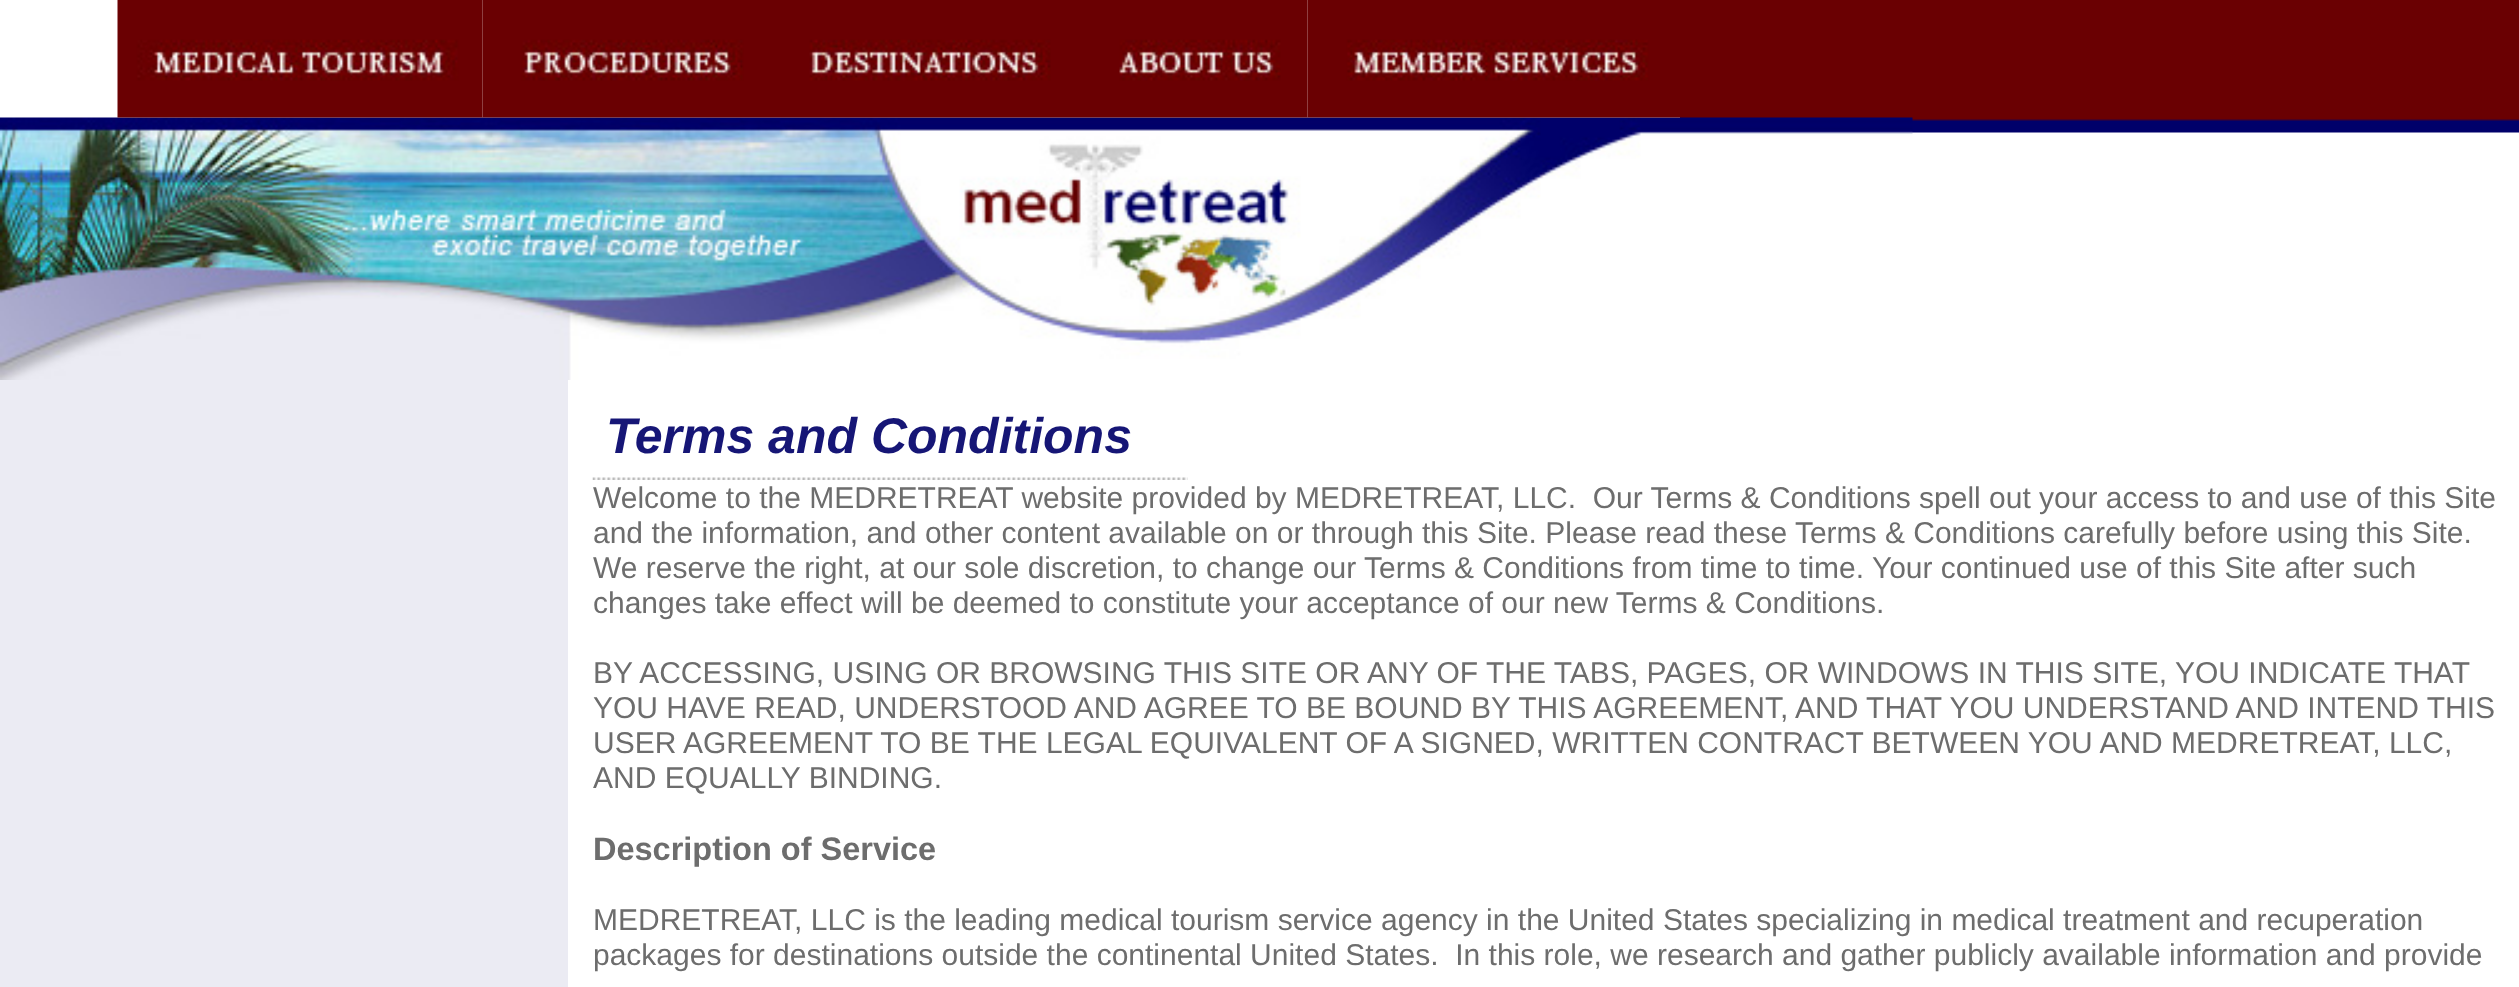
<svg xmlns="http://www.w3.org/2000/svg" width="2519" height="987">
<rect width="100%" height="100%" fill="#fff"/>
<image x="1680" y="0" width="839" height="133" href="media/6.png"/>
<image x="0" y="117" width="1913" height="263" href="media/7.png"/>
<image x="117" y="0" width="366" height="118" href="media/1.png"/>
<image x="482" y="0" width="288" height="118" href="media/2.png"/>
<image x="770" y="0" width="310" height="118" href="media/3.png"/>
<image x="1080" y="0" width="228" height="118" href="media/4.png"/>
<image x="1307" y="0" width="373" height="118" href="media/5.png"/>
<rect y="380" width="568" height="607" fill="#ebebf3"/>
<text x="606" y="453" style="font-family:Liberation Sans;font-size:50px;font-weight:bold;font-style:italic;fill:#161676">Terms and Conditions</text>
<image x="592" y="477" width="596" height="3" href="media/8.png"/>
<text x="593" y="508" style="font-family:Liberation Sans;font-size:30px;fill:#6d6d6d" xml:space="preserve">Welcome to the MEDRETREAT website provided by MEDRETREAT, LLC.  Our Terms &amp; Conditions spell out your access to and use of this Site</text>
<text x="593" y="543" style="font-family:Liberation Sans;font-size:30px;fill:#6d6d6d">and the information, and other content available on or through this Site. Please read these Terms &amp; Conditions carefully before using this Site.</text>
<text x="593" y="578" style="font-family:Liberation Sans;font-size:30px;fill:#6d6d6d">We reserve the right, at our sole discretion, to change our Terms &amp; Conditions from time to time. Your continued use of this Site after such</text>
<text x="593" y="613" style="font-family:Liberation Sans;font-size:30px;fill:#6d6d6d">changes take effect will be deemed to constitute your acceptance of our new Terms &amp; Conditions.</text>
<text x="593" y="683" style="font-family:Liberation Sans;font-size:30px;fill:#6d6d6d">BY ACCESSING, USING OR BROWSING THIS SITE OR ANY OF THE TABS, PAGES, OR WINDOWS IN THIS SITE, YOU INDICATE THAT</text>
<text x="593" y="718" style="font-family:Liberation Sans;font-size:30px;fill:#6d6d6d">YOU HAVE READ, UNDERSTOOD AND AGREE TO BE BOUND BY THIS AGREEMENT, AND THAT YOU UNDERSTAND AND INTEND THIS</text>
<text x="593" y="753" style="font-family:Liberation Sans;font-size:30px;fill:#6d6d6d">USER AGREEMENT TO BE THE LEGAL EQUIVALENT OF A SIGNED, WRITTEN CONTRACT BETWEEN YOU AND MEDRETREAT, LLC,</text>
<text x="593" y="788" style="font-family:Liberation Sans;font-size:30px;fill:#6d6d6d">AND EQUALLY BINDING.</text>
<text x="593" y="860" style="font-family:Liberation Sans;font-size:32.5px;font-weight:bold;fill:#6d6d6d">Description of Service</text>
<text x="593" y="930" style="font-family:Liberation Sans;font-size:30px;fill:#6d6d6d">MEDRETREAT, LLC is the leading medical tourism service agency in the United States specializing in medical treatment and recuperation</text>
<text x="593" y="965" style="font-family:Liberation Sans;font-size:30px;fill:#6d6d6d" xml:space="preserve">packages for destinations outside the continental United States.  In this role, we research and gather publicly available information and provide</text>
</svg>
